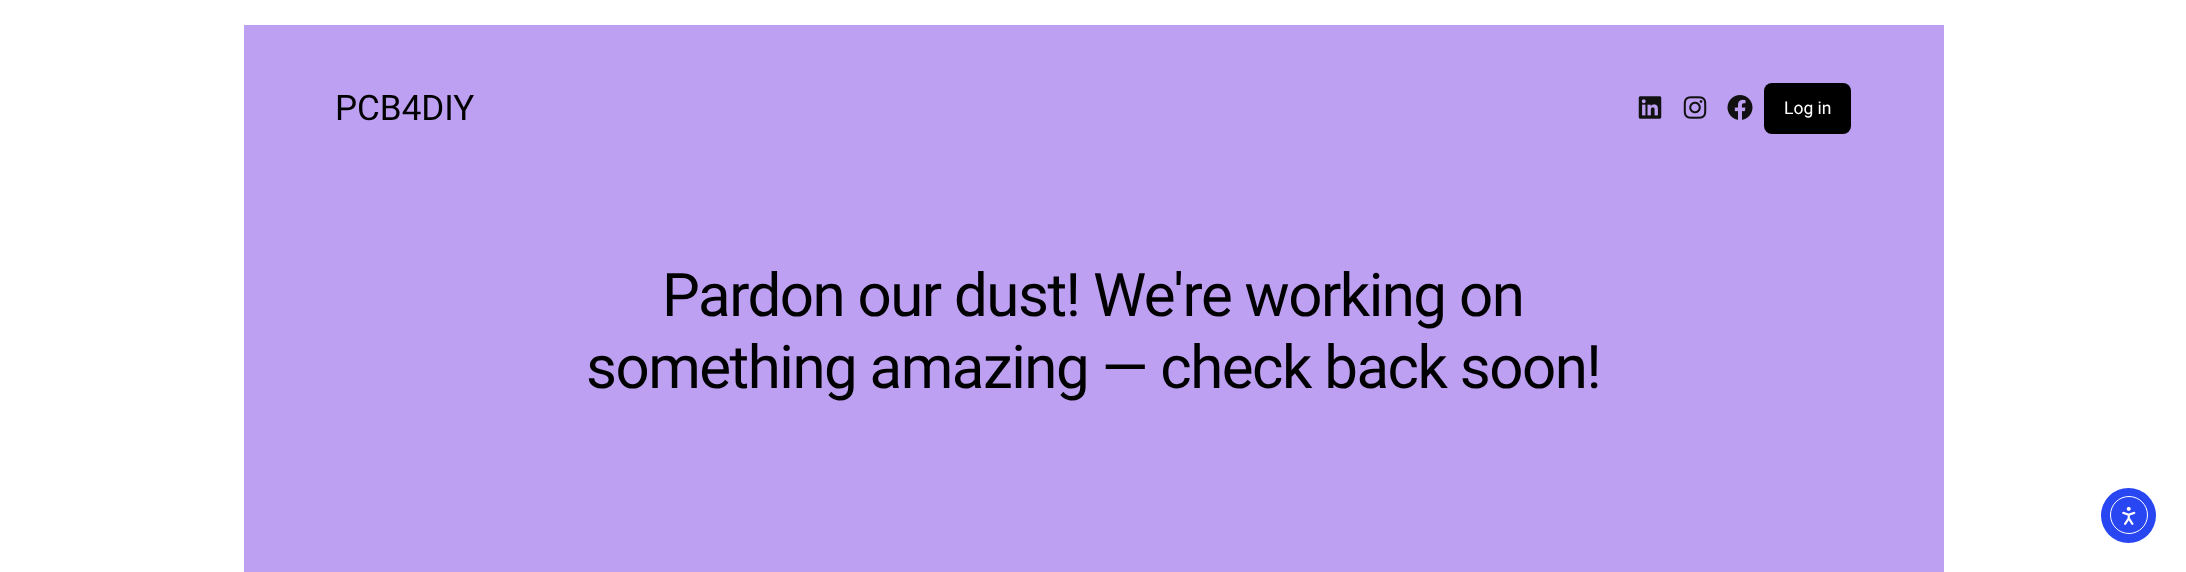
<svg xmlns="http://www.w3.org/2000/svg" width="2186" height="572">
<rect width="100%" height="100%" fill="#fff"/>
<rect x="244" y="25" width="1700" height="547" fill="#bea0f2"/>
<text x="335" y="120" style="font-family:Roboto;font-size:35px;fill:#000">PCB4DIY</text>
<image x="1638" y="96" width="24" height="23" href="media/1.png"/>
<image x="1683" y="96" width="24" height="23" href="media/2.png"/>
<image x="1727" y="95" width="26" height="25" href="media/3.png"/>
<rect x="1764" y="83" width="87" height="51" rx="8" fill="#000"/>
<text x="1784" y="114" style="font-family:Roboto;font-size:17.5px;fill:#fff">Log in</text>
<text x="662" y="316" style="font-family:Roboto;font-size:60px;letter-spacing:-1.5px;fill:#000">Pardon our dust! We're working on</text>
<text x="586" y="388" style="font-family:Roboto;font-size:60px;letter-spacing:-1.5px;fill:#000">something amazing — check back soon!</text>
<circle cx="2128.5" cy="515.5" r="27.5" fill="#2847f3"/>
<circle cx="2129" cy="515" r="18.5" fill="none" stroke="#fff"/>
<image x="2122" y="506" width="14" height="19" href="media/4.png"/>
</svg>
